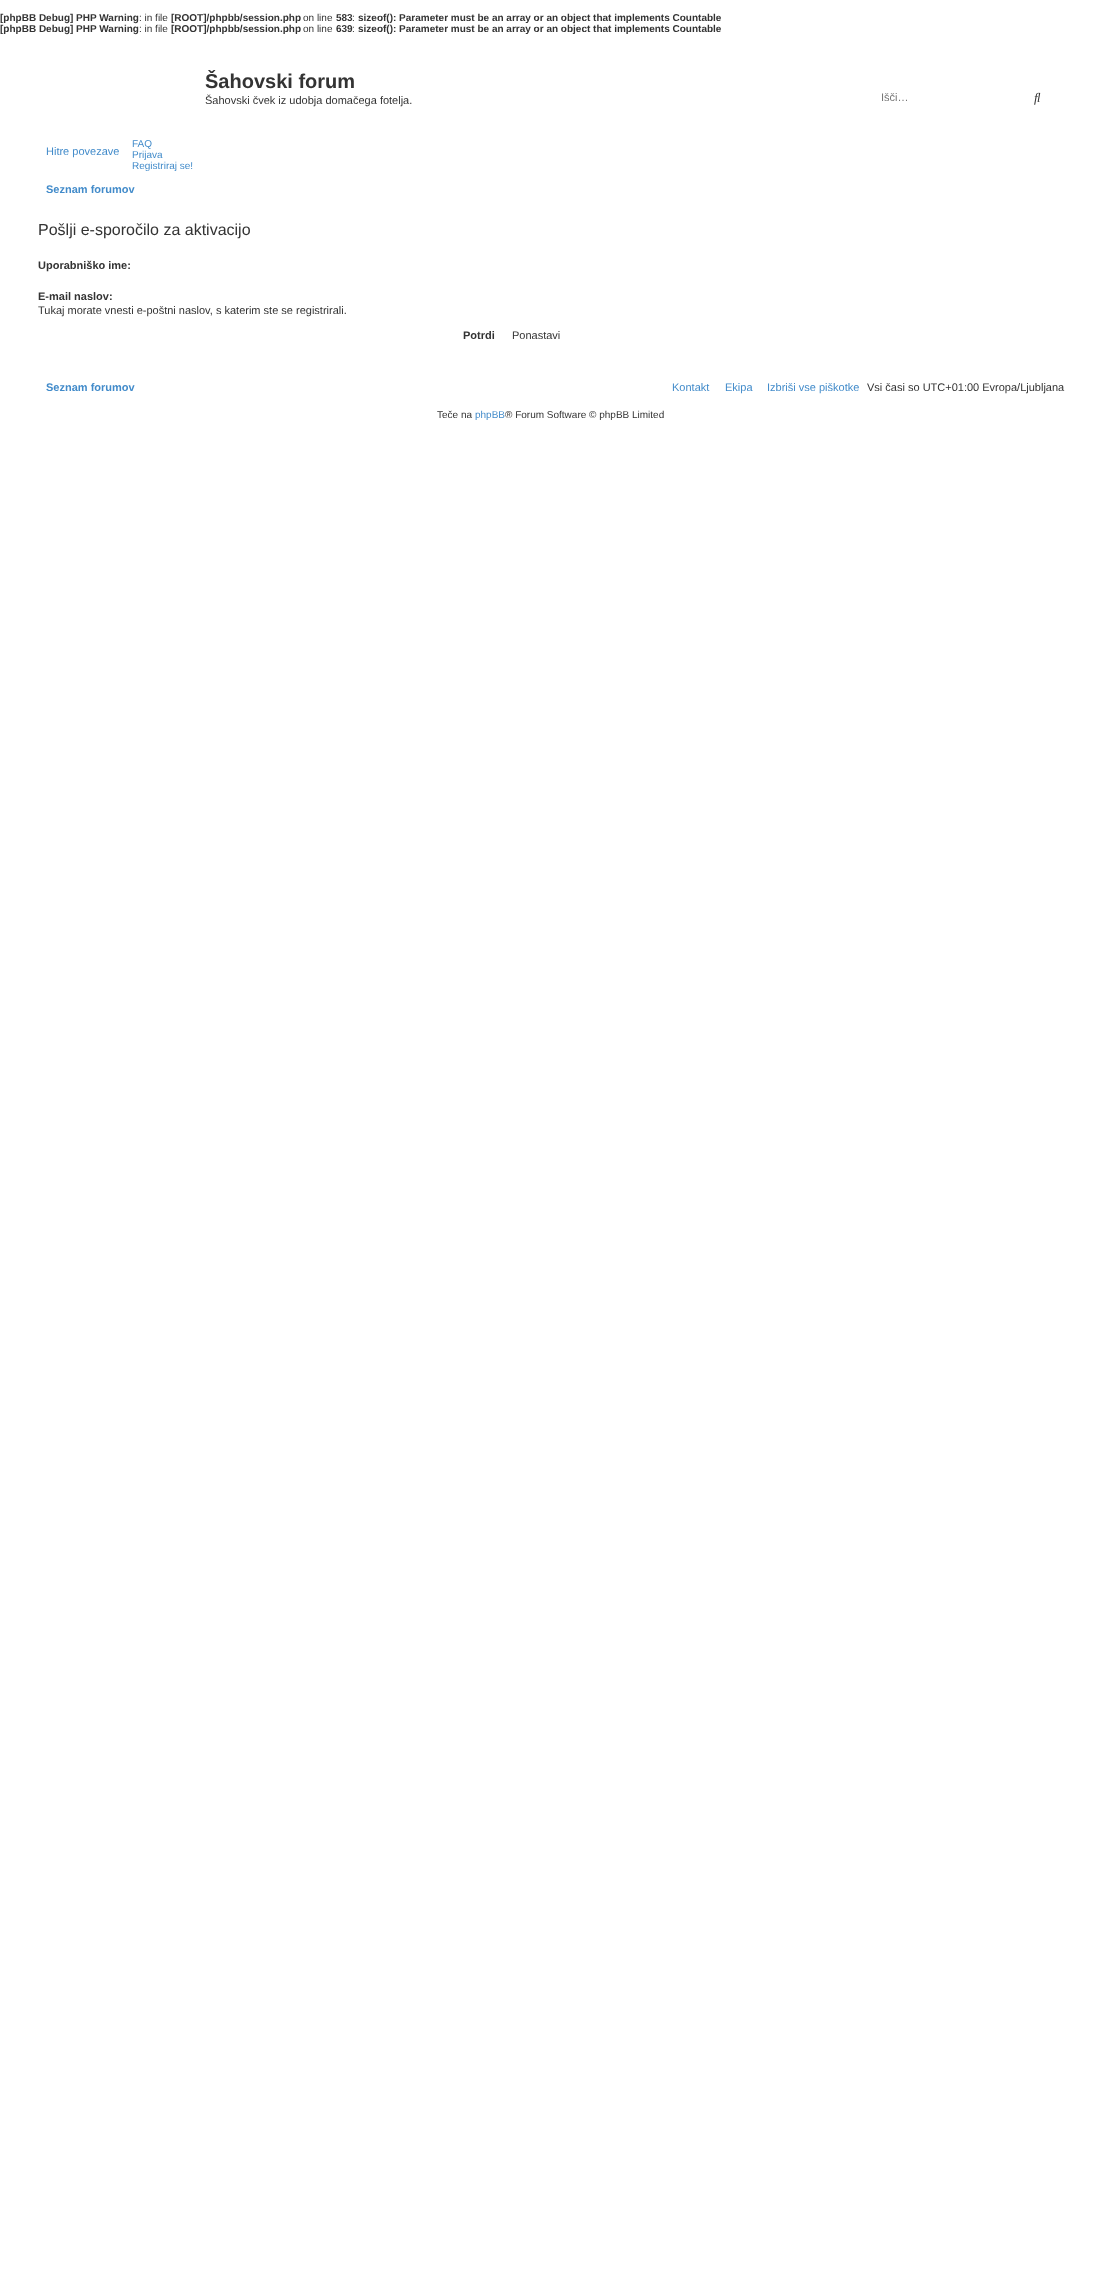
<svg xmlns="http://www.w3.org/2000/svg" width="1102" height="2288">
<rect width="100%" height="100%" fill="#fff"/>
<text x="0" y="21" style="font-family:Liberation Sans;font-size:10px;font-weight:bold;fill:#333">[phpBB Debug] PHP Warning</text>
<text x="139" y="21" style="font-family:Liberation Sans;font-size:10px;fill:#333">: in file</text>
<text x="171" y="21" style="font-family:Liberation Sans;font-size:10px;font-weight:bold;fill:#333">[ROOT]/phpbb/session.php</text>
<text x="303" y="21" style="font-family:Liberation Sans;font-size:10px;fill:#333">on line</text>
<text x="336" y="21" style="font-family:Liberation Sans;font-size:10px;font-weight:bold;fill:#333">583</text>
<text x="352" y="21" style="font-family:Liberation Sans;font-size:10px;fill:#333">:</text>
<text x="358" y="21" style="font-family:Liberation Sans;font-size:10px;font-weight:bold;fill:#333">sizeof(): Parameter must be an array or an object that implements Countable</text>
<text x="0" y="32" style="font-family:Liberation Sans;font-size:10px;font-weight:bold;fill:#333">[phpBB Debug] PHP Warning</text>
<text x="139" y="32" style="font-family:Liberation Sans;font-size:10px;fill:#333">: in file</text>
<text x="171" y="32" style="font-family:Liberation Sans;font-size:10px;font-weight:bold;fill:#333">[ROOT]/phpbb/session.php</text>
<text x="303" y="32" style="font-family:Liberation Sans;font-size:10px;fill:#333">on line</text>
<text x="336" y="32" style="font-family:Liberation Sans;font-size:10px;font-weight:bold;fill:#333">639</text>
<text x="352" y="32" style="font-family:Liberation Sans;font-size:10px;fill:#333">:</text>
<text x="358" y="32" style="font-family:Liberation Sans;font-size:10px;font-weight:bold;fill:#333">sizeof(): Parameter must be an array or an object that implements Countable</text>
<text x="205" y="88" style="font-family:Liberation Sans;font-size:20px;font-weight:bold;fill:#333">Šahovski forum</text>
<text x="205" y="104" style="font-family:Liberation Sans;font-size:11px;fill:#333">Šahovski čvek iz udobja domačega fotelja.</text>
<text x="881" y="101" style="font-family:Liberation Sans;font-size:11px;fill:#757575">Išči…</text>
<image x="1034" y="92" width="7" height="13" href="media/1.png"/>
<text x="46" y="155" style="font-family:Liberation Sans;font-size:11px;fill:#428bca">Hitre povezave</text>
<text x="132" y="147" style="font-family:Liberation Sans;font-size:10px;fill:#428bca">FAQ</text>
<text x="132" y="158" style="font-family:Liberation Sans;font-size:10px;fill:#428bca">Prijava</text>
<text x="132" y="169" style="font-family:Liberation Sans;font-size:10px;fill:#428bca">Registriraj se!</text>
<text x="46" y="193" style="font-family:Liberation Sans;font-size:11px;font-weight:bold;fill:#428bca">Seznam forumov</text>
<text x="38" y="235" style="font-family:Liberation Sans;font-size:16px;fill:#333">Pošlji e-sporočilo za aktivacijo</text>
<text x="38" y="269" style="font-family:Liberation Sans;font-size:11px;font-weight:bold;fill:#333">Uporabniško ime:</text>
<text x="38" y="300" style="font-family:Liberation Sans;font-size:11px;font-weight:bold;fill:#333">E-mail naslov:</text>
<text x="38" y="314" style="font-family:Liberation Sans;font-size:11px;fill:#333">Tukaj morate vnesti e-poštni naslov, s katerim ste se registrirali.</text>
<text x="463" y="339" style="font-family:Liberation Sans;font-size:11px;font-weight:bold;fill:#333">Potrdi</text>
<text x="512" y="339" style="font-family:Liberation Sans;font-size:11px;fill:#333">Ponastavi</text>
<text x="46" y="391" style="font-family:Liberation Sans;font-size:11px;font-weight:bold;fill:#428bca">Seznam forumov</text>
<text x="672" y="391" style="font-family:Liberation Sans;font-size:11px;fill:#428bca">Kontakt</text>
<text x="725" y="391" style="font-family:Liberation Sans;font-size:11px;fill:#428bca">Ekipa</text>
<text x="767" y="391" style="font-family:Liberation Sans;font-size:11px;fill:#428bca">Izbriši vse piškotke</text>
<text x="867" y="391" style="font-family:Liberation Sans;font-size:11px;fill:#333">Vsi časi so UTC+01:00 Evropa/Ljubljana</text>
<text x="437" y="418" style="font-family:Liberation Sans;font-size:10px;fill:#333">Teče na</text>
<text x="475" y="418" style="font-family:Liberation Sans;font-size:10px;fill:#428bca">phpBB</text>
<text x="505" y="418" style="font-family:Liberation Sans;font-size:10px;fill:#333">® Forum Software © phpBB Limited</text>
</svg>
